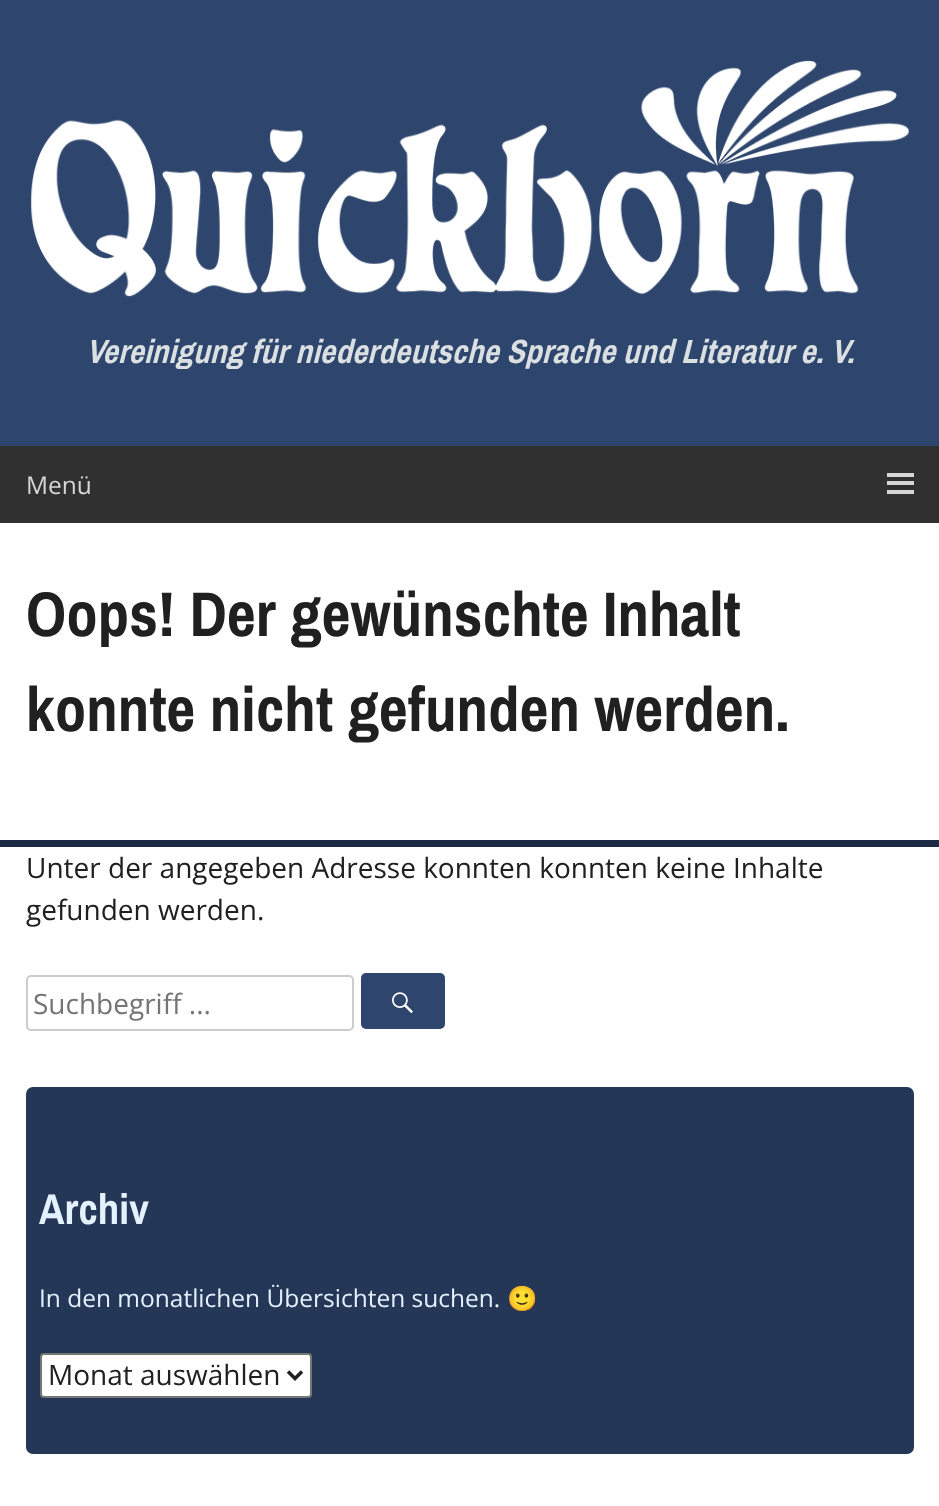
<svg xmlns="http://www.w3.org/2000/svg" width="939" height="1506">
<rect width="100%" height="100%" fill="#2e456d"/>
<image x="31" y="60" width="878" height="237" href="media/1.png"/>
<text x="86" y="363" style="font-family:Archivo Narrow;font-size:33.6px;font-weight:bold;font-style:italic;fill:#dadfe1">Vereinigung für niederdeutsche Sprache und Literatur e. V.</text>
<rect y="446" width="939" height="77" fill="#303030"/>
<text x="26" y="494" style="font-family:Open Sans;font-size:24.5px;fill:#d6d6d6">Menü</text>
<rect x="887" y="481" width="27" height="4" fill="#d6d6d6"/>
<rect x="887" y="473" width="27" height="4" fill="#d6d6d6"/>
<rect x="887" y="490" width="27" height="4" fill="#d6d6d6"/>
<rect y="523" width="939" height="983" fill="#fff"/>
<rect y="840" width="939" height="7" fill="#1c2a43"/>
<text x="26" y="636" style="font-family:Archivo Narrow;font-size:63px;font-weight:bold;fill:#202020">Oops! Der gewünschte Inhalt</text>
<text x="26" y="731" style="font-family:Archivo Narrow;font-size:63px;font-weight:bold;fill:#202020">konnte nicht gefunden werden.</text>
<text x="26" y="878" style="font-family:Open Sans;font-size:28px;fill:#202020">Unter der angegeben Adresse konnten konnten keine Inhalte</text>
<text x="26" y="920" style="font-family:Open Sans;font-size:28px;fill:#202020">gefunden werden.</text>
<rect x="27" y="976" width="326" height="54" rx="4" fill="none" stroke="#ccc" stroke-width="2"/>
<text x="33" y="1014" style="font-family:Open Sans;font-size:28px;fill:#757575">Suchbegriff ...</text>
<rect x="361" y="973" width="84" height="56" rx="5" fill="#2e456d"/>
<image x="392" y="992" width="21" height="22" href="media/2.png"/>
<rect x="26" y="1087" width="888" height="367" rx="7" fill="#253757"/>
<text x="39" y="1224" style="font-family:Archivo Narrow;font-size:43px;font-weight:bold;fill:#e4f1fe">Archiv</text>
<text x="39" y="1307" style="font-family:Open Sans;font-size:24.5px;fill:#e4f1fe">In den monatlichen Übersichten suchen.</text>
<text x="507" y="1307" style="font-family:Noto Color Emoji;font-size:24.5px;fill:#e4f1fe">🙂</text>
<rect x="41" y="1354" width="270" height="43" rx="3" fill="#fff" stroke="#767676" stroke-width="2"/>
<path d="M288 1371.5l7 7l7-7" fill="none" stroke="#202020" stroke-width="3.5"/>
<text x="48" y="1385" style="font-family:Open Sans;font-size:28px;fill:#202020">Monat auswählen</text>
</svg>
